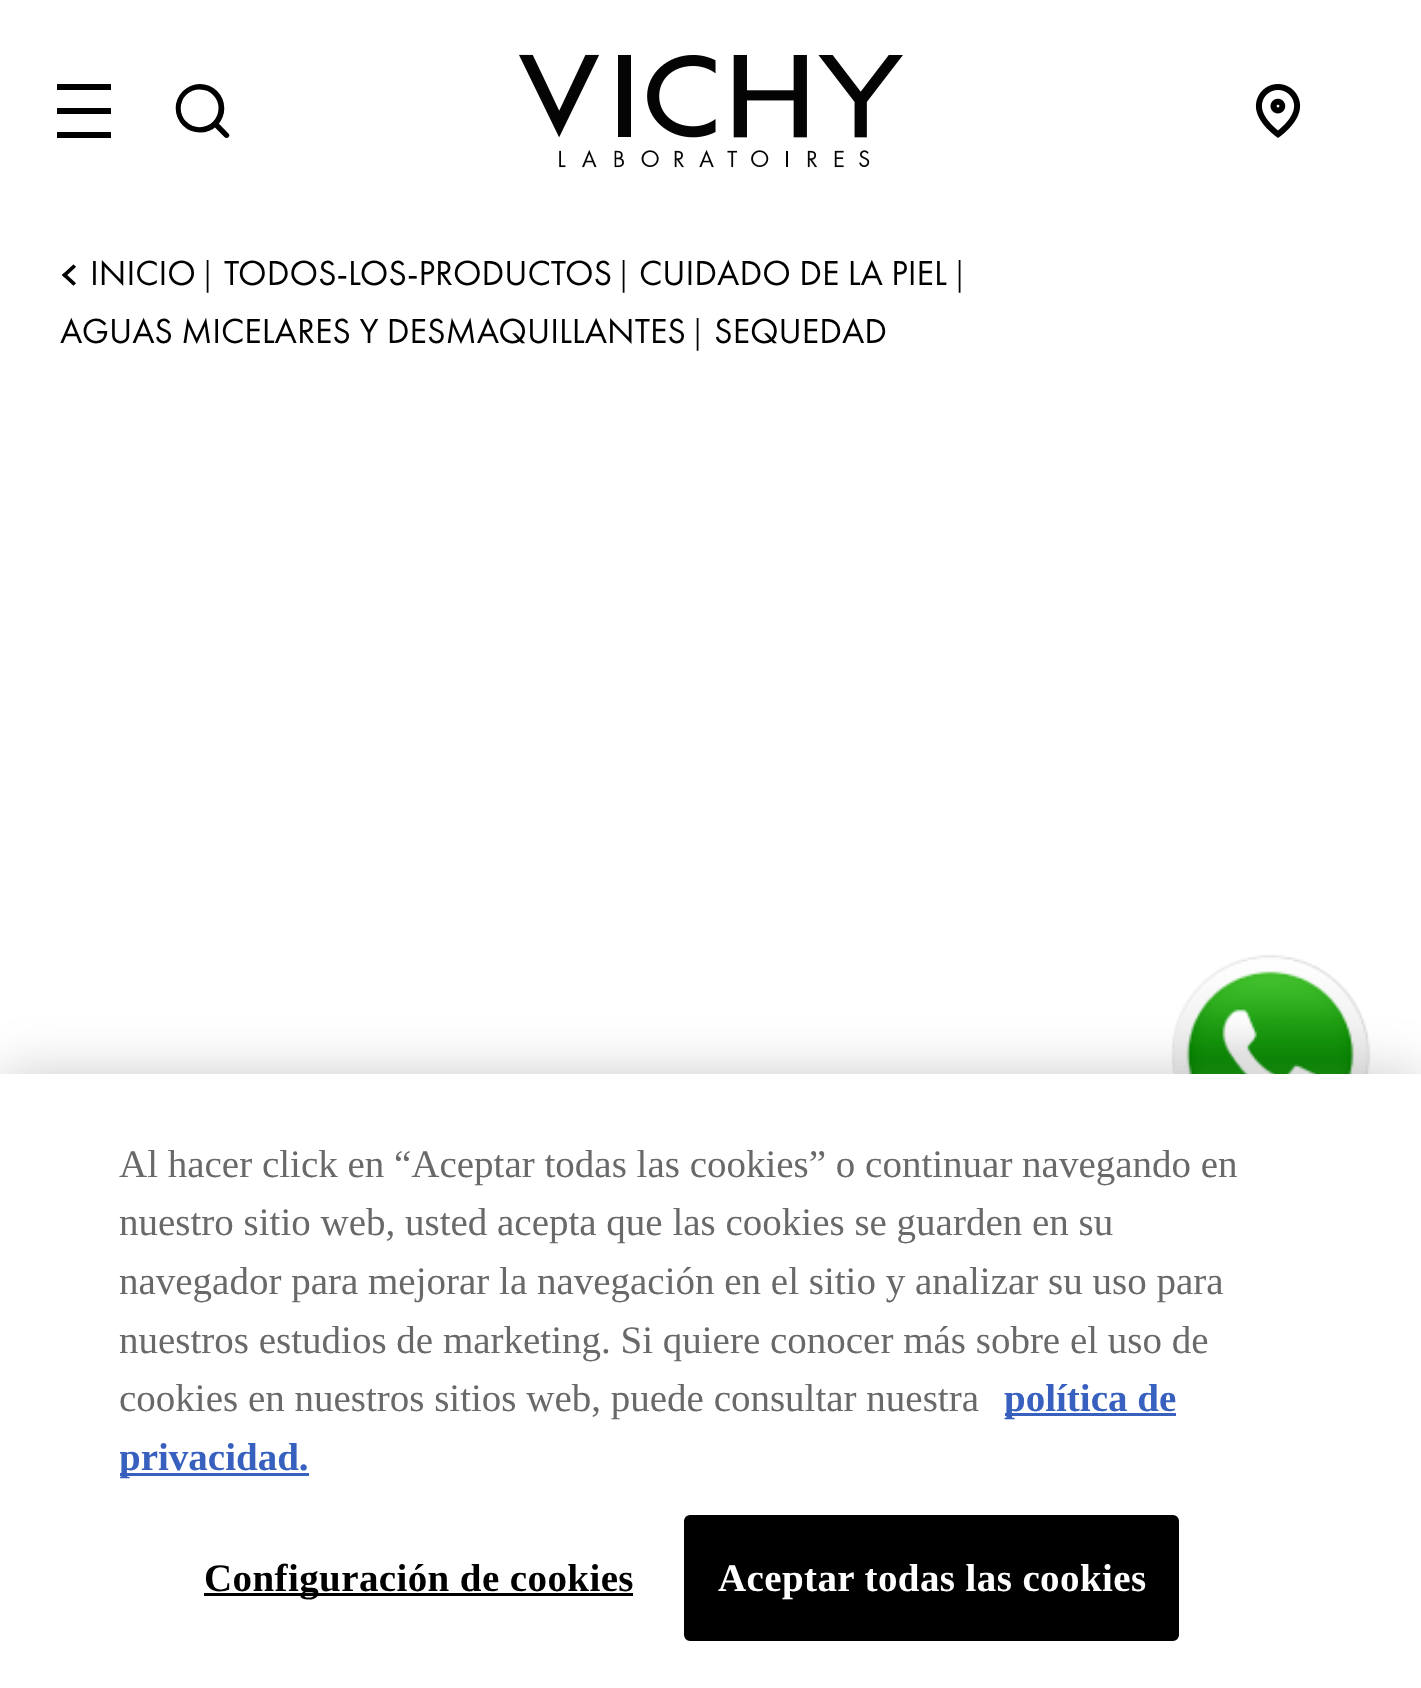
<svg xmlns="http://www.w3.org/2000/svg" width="1421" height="1688">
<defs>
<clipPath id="clip1"><rect x="120" y="1134" width="1119" height="351"/></clipPath>
</defs>
<rect width="100%" height="100%" fill="#fff"/>
<image x="57" y="84" width="54" height="54" href="media/1.png"/>
<image x="175" y="84" width="55" height="54" href="media/2.png"/>
<image x="519" y="54" width="384" height="114" href="media/3.png"/>
<image x="1255" y="84" width="46" height="54" href="media/4.png"/>
<image x="61" y="264" width="15" height="22" href="media/5.png"/>
<text x="90" y="285" style="font-family:Futura PT;font-size:36px;fill:#000">INICIO</text>
<text x="204" y="285" style="font-family:Liberation Serif;font-size:36px;fill:#000">|</text>
<text x="224" y="285" style="font-family:Futura PT;font-size:36px;fill:#000">TODOS-LOS-PRODUCTOS</text>
<text x="620" y="285" style="font-family:Liberation Serif;font-size:36px;fill:#000">|</text>
<text x="639" y="285" style="font-family:Futura PT;font-size:36px;fill:#000">CUIDADO DE LA PIEL</text>
<text x="956" y="285" style="font-family:Liberation Serif;font-size:36px;fill:#000">|</text>
<text x="60" y="343" style="font-family:Futura PT;font-size:36px;fill:#000">AGUAS MICELARES Y DESMAQUILLANTES</text>
<text x="694" y="343" style="font-family:Liberation Serif;font-size:36px;fill:#000">|</text>
<text x="714" y="343" style="font-family:Futura PT;font-size:36px;fill:#000">SEQUEDAD</text>
<image x="1171" y="954" width="200" height="120" href="media/6.png"/>
<rect y="1074" width="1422" height="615" fill="#00000033" filter="blur(27px)"/>
<rect y="1074" width="1421" height="614" fill="#fff"/>
<text x="119" y="1177" style="font-family:Liberation Serif;font-size:39px;fill:#696969">Al hacer click en “Aceptar todas las cookies” o continuar navegando en</text>
<text x="119" y="1235" style="font-family:Liberation Serif;font-size:39px;fill:#696969">nuestro sitio web, usted acepta que las cookies se guarden en su</text>
<text x="119" y="1294" style="font-family:Liberation Serif;font-size:39px;fill:#696969">navegador para mejorar la navegación en el sitio y analizar su uso para</text>
<text x="119" y="1353" style="font-family:Liberation Serif;font-size:39px;fill:#696969">nuestros estudios de marketing. Si quiere conocer más sobre el uso de</text>
<text x="119" y="1411" style="font-family:Liberation Serif;font-size:39px;fill:#696969">cookies en nuestros sitios web, puede consultar nuestra</text>
<rect x="1005" y="1413" width="171" height="3" fill="#3860be"/>
<text x="1004" y="1411" style="font-family:Liberation Serif;font-size:39px;font-weight:bold;fill:#3860be">política de</text>
<rect x="120" y="1473" width="189" height="3" fill="#3860be"/>
<g clip-path="url(#clip1)">
<text x="119" y="1470" style="font-family:Liberation Serif;font-size:39px;font-weight:bold;fill:#3860be">privacidad.</text>
</g>
<rect x="204" y="1593" width="429" height="3" fill="#000"/>
<text x="204" y="1591" style="font-family:Liberation Serif;font-size:39px;font-weight:bold;letter-spacing:0.4px;fill:#000">Configuración de cookies</text>
<rect x="685.5" y="1516.5" width="492" height="123" rx="4.5" fill="#000" stroke="#000" stroke-width="3"/>
<text x="718" y="1591" style="font-family:Liberation Serif;font-size:39px;font-weight:bold;letter-spacing:0.4px;fill:#fff">Aceptar todas las cookies</text>
</svg>
